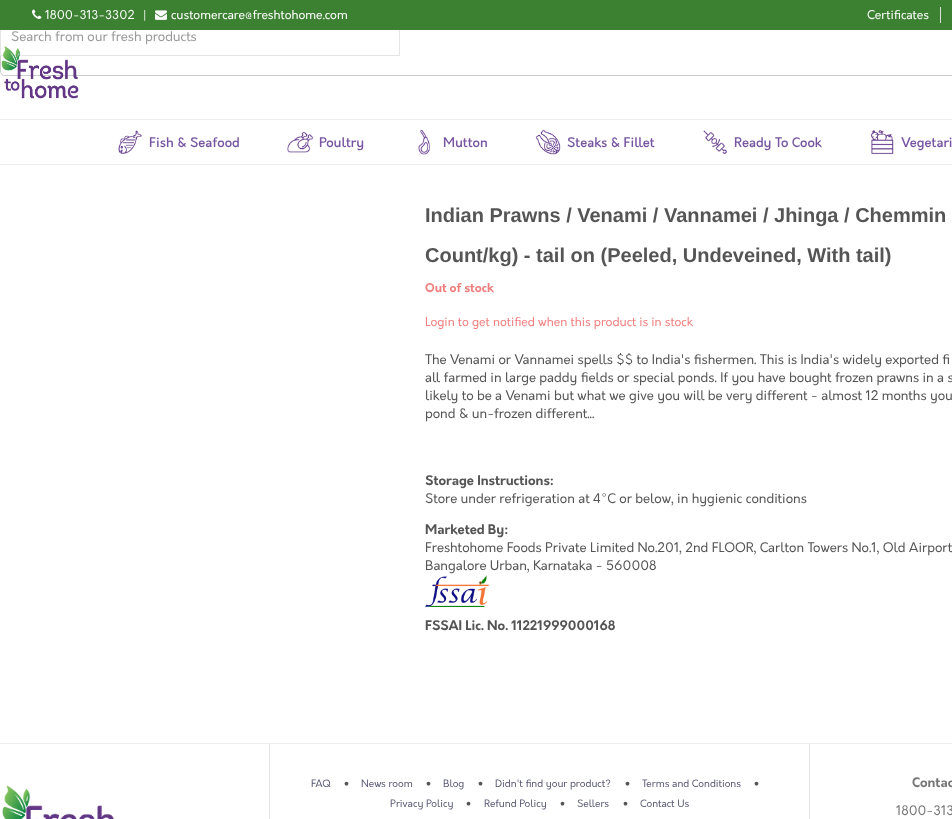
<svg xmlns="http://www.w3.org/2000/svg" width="952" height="819">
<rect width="100%" height="100%" fill="#fff"/>
<rect y="119" width="952" height="1" fill="#eee"/>
<rect x="0.5" y="-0.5" width="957" height="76" rx="4.5" fill="none" stroke="#ccc"/>
<rect x="0.5" y="18.5" width="399" height="37" fill="none" stroke="#e5e5e5"/>
<rect width="952" height="30" fill="#3c8031"/>
<image x="32" y="9" width="10" height="10" href="media/1.png"/>
<text x="45" y="19" style="font-family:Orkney;font-size:12px;fill:#fff">1800-313-3302</text>
<text x="143" y="19" style="font-family:Orkney;font-size:12px;fill:#fff">|</text>
<image x="155" y="10" width="12" height="10" href="media/2.png"/>
<text x="171" y="19" style="font-family:Orkney;font-size:12px;fill:#fff">customercare@freshtohome.com</text>
<text x="867" y="19" style="font-family:Orkney;font-size:12px;fill:#fff">Certificates</text>
<rect x="940" y="7" width="1" height="16" fill="#ddd"/>
<text x="11" y="41" style="font-family:Orkney;font-size:13px;fill:#9a9a9a">Search from our fresh products</text>
<image x="1" y="46" width="78" height="53" href="media/3.png"/>
<rect y="164" width="952" height="1" fill="#eee"/>
<image x="118" y="130" width="24" height="24" href="media/4.png"/>
<text x="149" y="147" style="font-family:Orkney;font-size:13px;font-weight:500;fill:#7755a2">Fish &amp; Seafood</text>
<image x="287" y="131" width="26" height="22" href="media/5.png"/>
<text x="319" y="147" style="font-family:Orkney;font-size:13px;font-weight:500;fill:#7755a2">Poultry</text>
<image x="418" y="129" width="12" height="26" href="media/6.png"/>
<text x="443" y="147" style="font-family:Orkney;font-size:13px;font-weight:500;fill:#7755a2">Mutton</text>
<image x="535" y="129" width="26" height="26" href="media/7.png"/>
<text x="567" y="147" style="font-family:Orkney;font-size:13px;font-weight:500;fill:#7755a2">Steaks &amp; Fillet</text>
<image x="703" y="130" width="24" height="25" href="media/8.png"/>
<text x="734" y="147" style="font-family:Orkney;font-size:13px;font-weight:500;fill:#7755a2">Ready To Cook</text>
<image x="870" y="130" width="24" height="25" href="media/9.png"/>
<text x="901" y="147" style="font-family:Orkney;font-size:13px;font-weight:500;fill:#7755a2">Vegetari</text>
<text x="425" y="222" style="font-family:Liberation Sans;font-size:20px;font-weight:bold;fill:#555">Indian Prawns / Venami / Vannamei / Jhinga / Chemmin</text>
<text x="425" y="262" style="font-family:Liberation Sans;font-size:20px;font-weight:bold;fill:#555">Count/kg) - tail on (Peeled, Undeveined, With tail)</text>
<text x="425" y="292" style="font-family:Orkney;font-size:12px;font-weight:bold;fill:#f08080">Out of stock</text>
<text x="425" y="326" style="font-family:Orkney;font-size:12px;fill:#f08080">Login to get notified when this product is in stock</text>
<text x="425" y="364" style="font-family:Orkney;font-size:13px;fill:#555">The Venami or Vannamei spells $$ to India's fishermen. This is India's widely exported fi</text>
<text x="425" y="382" style="font-family:Orkney;font-size:13px;fill:#555">all farmed in large paddy fields or special ponds. If you have bought frozen prawns in a s</text>
<text x="425" y="400" style="font-family:Orkney;font-size:13px;fill:#555">likely to be a Venami but what we give you will be very different - almost 12 months you</text>
<text x="425" y="418" style="font-family:Orkney;font-size:13px;fill:#555">pond &amp; un-frozen different...</text>
<text x="425" y="485" style="font-family:Orkney;font-size:13px;font-weight:bold;fill:#555">Storage Instructions:</text>
<text x="425" y="503" style="font-family:Orkney;font-size:13px;fill:#555">Store under refrigeration at 4°C or below, in hygienic conditions</text>
<text x="425" y="534" style="font-family:Orkney;font-size:13px;font-weight:bold;fill:#555">Marketed By:</text>
<text x="425" y="552" style="font-family:Orkney;font-size:13px;fill:#555">Freshtohome Foods Private Limited No.201, 2nd FLOOR, Carlton Towers No.1, Old Airport</text>
<text x="425" y="570" style="font-family:Orkney;font-size:13px;fill:#555">Bangalore Urban, Karnataka - 560008</text>
<image x="425" y="575" width="64" height="32" href="media/10.png"/>
<text x="425" y="630" style="font-family:Orkney;font-size:13px;font-weight:bold;fill:#555">FSSAI Lic. No. 11221999000168</text>
<rect y="743" width="952" height="1" fill="#eee"/>
<rect x="269" y="744" width="1" height="75" fill="#e5e5e5"/>
<image x="2" y="785" width="112" height="34" href="media/11.png"/>
<rect x="809" y="744" width="1" height="75" fill="#e5e5e5"/>
<text x="311" y="787" style="font-family:Orkney;font-size:10px;fill:#5a5a75">FAQ</text>
<text x="341" y="798" style="font-family:Orkney;font-size:40px;fill:#555">·</text>
<text x="361" y="787" style="font-family:Orkney;font-size:10px;fill:#5a5a75">News room</text>
<text x="423" y="798" style="font-family:Orkney;font-size:40px;fill:#555">·</text>
<text x="443" y="787" style="font-family:Orkney;font-size:10px;fill:#5a5a75">Blog</text>
<text x="475" y="798" style="font-family:Orkney;font-size:40px;fill:#555">·</text>
<text x="495" y="787" style="font-family:Orkney;font-size:10px;fill:#5a5a75">Didn't find your product?</text>
<text x="622" y="798" style="font-family:Orkney;font-size:40px;fill:#555">·</text>
<text x="642" y="787" style="font-family:Orkney;font-size:10px;fill:#5a5a75">Terms and Conditions</text>
<text x="751" y="798" style="font-family:Orkney;font-size:40px;fill:#555">·</text>
<text x="390" y="807" style="font-family:Orkney;font-size:10px;fill:#5a5a75">Privacy Policy</text>
<text x="463" y="818" style="font-family:Orkney;font-size:40px;fill:#555">·</text>
<text x="484" y="807" style="font-family:Orkney;font-size:10px;fill:#5a5a75">Refund Policy</text>
<text x="557" y="818" style="font-family:Orkney;font-size:40px;fill:#555">·</text>
<text x="577" y="807" style="font-family:Orkney;font-size:10px;fill:#5a5a75">Sellers</text>
<text x="620" y="818" style="font-family:Orkney;font-size:40px;fill:#555">·</text>
<text x="640" y="807" style="font-family:Orkney;font-size:10px;fill:#5a5a75">Contact Us</text>
<text x="912" y="787" style="font-family:Orkney;font-size:13px;font-weight:bold;fill:#777">Contac</text>
<text x="896" y="815" style="font-family:Orkney;font-size:13px;fill:#777">1800-313</text>
</svg>
